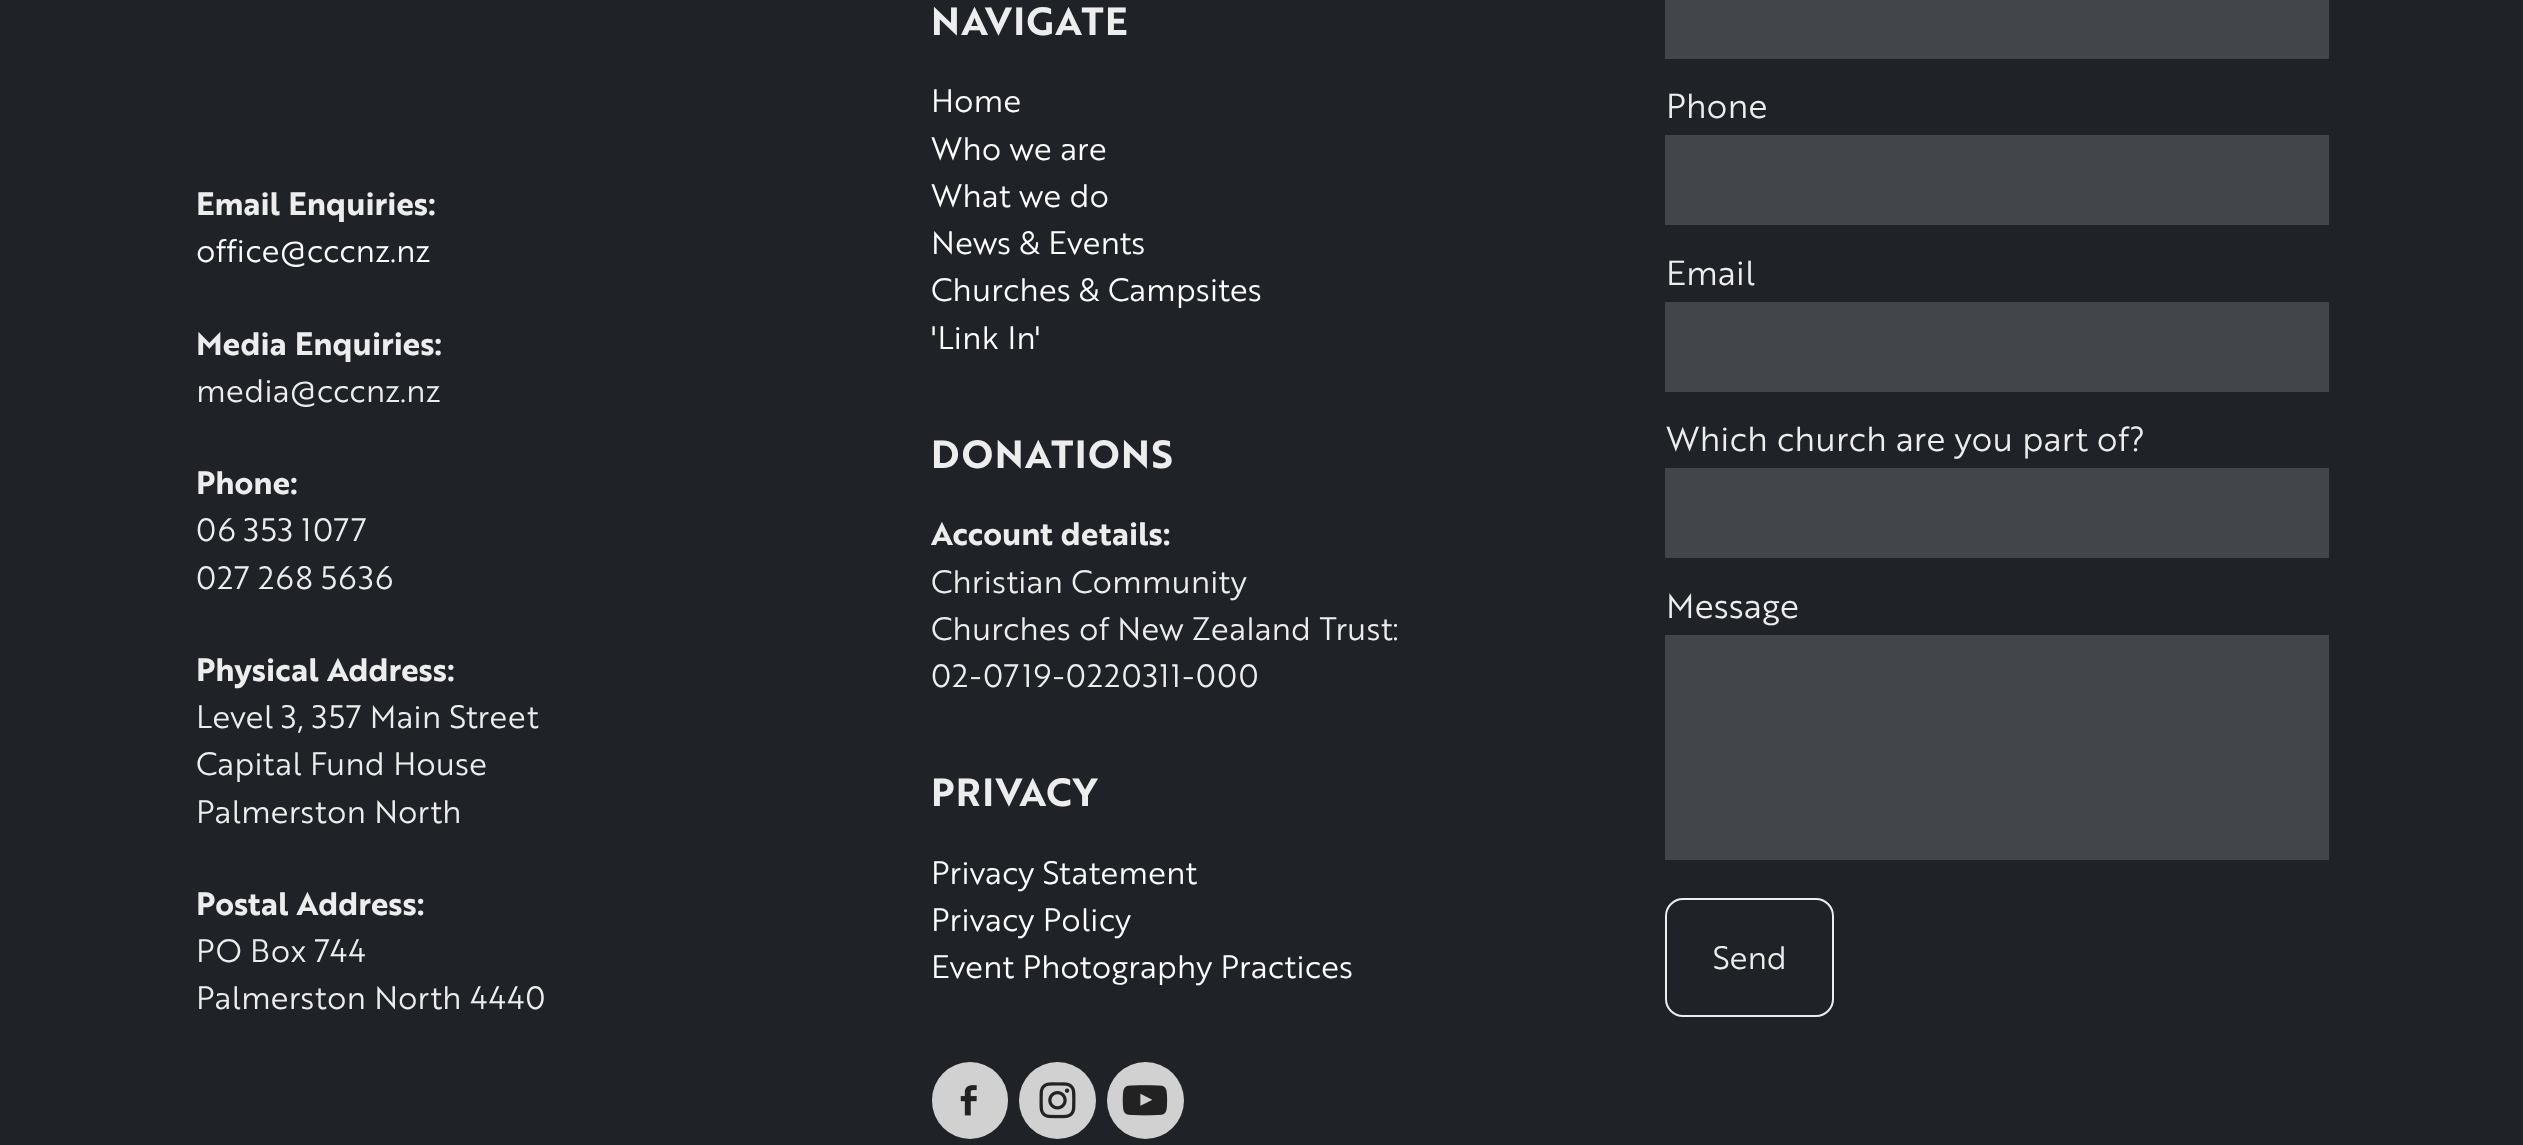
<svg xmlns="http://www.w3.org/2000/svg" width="2523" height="1145">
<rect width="100%" height="100%" fill="#1f2328"/>
<text x="196" y="215" style="font-family:'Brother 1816';font-size:31.5px;font-weight:bold;fill:#ededed">Email Enquiries:</text>
<text x="196" y="262" style="font-family:'Brother 1816';font-size:31.5px;fill:#fff">office@cccnz.nz</text>
<text x="196" y="355" style="font-family:'Brother 1816';font-size:31.5px;font-weight:bold;fill:#ededed">Media Enquiries:</text>
<text x="196" y="402" style="font-family:'Brother 1816';font-size:31.5px;fill:#ededed">media@cccnz.nz</text>
<text x="196" y="494" style="font-family:'Brother 1816';font-size:31.5px;font-weight:bold;fill:#ededed">Phone:</text>
<text x="196" y="541" style="font-family:'Brother 1816';font-size:31.5px;fill:#ededed">06 353 1077</text>
<text x="196" y="589" style="font-family:'Brother 1816';font-size:31.5px;fill:#ededed">027 268 5636</text>
<text x="196" y="681" style="font-family:'Brother 1816';font-size:31.5px;font-weight:bold;fill:#ededed">Physical Address:</text>
<text x="196" y="728" style="font-family:'Brother 1816';font-size:31.5px;fill:#ededed">Level 3, 357 Main Street</text>
<text x="196" y="775" style="font-family:'Brother 1816';font-size:31.5px;fill:#ededed">Capital Fund House</text>
<text x="196" y="823" style="font-family:'Brother 1816';font-size:31.5px;fill:#ededed">Palmerston North</text>
<text x="196" y="915" style="font-family:'Brother 1816';font-size:31.5px;font-weight:bold;fill:#ededed">Postal Address:</text>
<text x="196" y="962" style="font-family:'Brother 1816';font-size:31.5px;fill:#ededed">PO Box 744</text>
<text x="196" y="1009" style="font-family:'Brother 1816';font-size:31.5px;fill:#ededed">Palmerston North 4440</text>
<text x="931" y="35" style="font-family:'Brother 1816';font-size:38.25px;font-weight:bold;fill:#ededed">NAVIGATE</text>
<text x="931" y="112" style="font-family:'Brother 1816';font-size:31.5px;fill:#fff">Home</text>
<text x="931" y="160" style="font-family:'Brother 1816';font-size:31.5px;fill:#fff">Who we are</text>
<text x="931" y="207" style="font-family:'Brother 1816';font-size:31.5px;fill:#fff">What we do</text>
<text x="931" y="254" style="font-family:'Brother 1816';font-size:31.5px;fill:#fff">News &amp; Events</text>
<text x="931" y="301" style="font-family:'Brother 1816';font-size:31.5px;fill:#fff">Churches &amp; Campsites</text>
<text x="931" y="349" style="font-family:'Brother 1816';font-size:31.5px;fill:#fff">'Link In'</text>
<text x="931" y="468" style="font-family:'Brother 1816';font-size:38.25px;font-weight:bold;fill:#ededed">DONATIONS</text>
<text x="931" y="545" style="font-family:'Brother 1816';font-size:31.5px;font-weight:bold;fill:#ededed">Account details:</text>
<text x="931" y="593" style="font-family:'Brother 1816';font-size:31.5px;fill:#ededed">Christian Community</text>
<text x="931" y="640" style="font-family:'Brother 1816';font-size:31.5px;fill:#ededed">Churches of New Zealand Trust:</text>
<text x="931" y="687" style="font-family:'Brother 1816';font-size:31.5px;fill:#ededed">02-0719-0220311-000</text>
<text x="931" y="806" style="font-family:'Brother 1816';font-size:38.25px;font-weight:bold;fill:#ededed">PRIVACY</text>
<text x="931" y="884" style="font-family:'Brother 1816';font-size:31.5px;fill:#fff">Privacy Statement</text>
<text x="931" y="931" style="font-family:'Brother 1816';font-size:31.5px;fill:#fff">Privacy Policy</text>
<text x="931" y="978" style="font-family:'Brother 1816';font-size:31.5px;fill:#fff">Event Photography Practices</text>
<rect x="932" y="1062" width="76" height="77" rx="38" fill="#d1d1d1"/>
<image x="960" y="1085" width="17" height="31" href="media/1.png"/>
<circle cx="1057.5" cy="1100.5" r="38.5" fill="#d1d1d1"/>
<image x="1039" y="1082" width="37" height="37" href="media/2.png"/>
<circle cx="1145.5" cy="1100.5" r="38.5" fill="#d1d1d1"/>
<image x="1122" y="1085" width="46" height="31" href="media/3.png"/>
<rect x="1665" width="664" height="59" fill="#424549"/>
<text x="1666" y="118" style="font-family:'Brother 1816';font-size:33.75px;fill:#ededed">Phone</text>
<rect x="1665" y="135" width="664" height="90" fill="#424549"/>
<text x="1666" y="285" style="font-family:'Brother 1816';font-size:33.75px;fill:#ededed">Email</text>
<rect x="1665" y="302" width="664" height="90" fill="#424549"/>
<text x="1666" y="451" style="font-family:'Brother 1816';font-size:33.75px;fill:#ededed">Which church are you part of?</text>
<rect x="1665" y="468" width="664" height="90" fill="#424549"/>
<text x="1666" y="618" style="font-family:'Brother 1816';font-size:33.75px;fill:#ededed">Message</text>
<rect x="1665" y="635" width="664" height="225" fill="#424549"/>
<rect x="1666" y="899" width="167" height="117" rx="17" fill="none" stroke="#ededed" stroke-width="2"/>
<text x="1713" y="969" style="font-family:'Brother 1816';font-size:31.5px;fill:#ededed">Send</text>
</svg>
